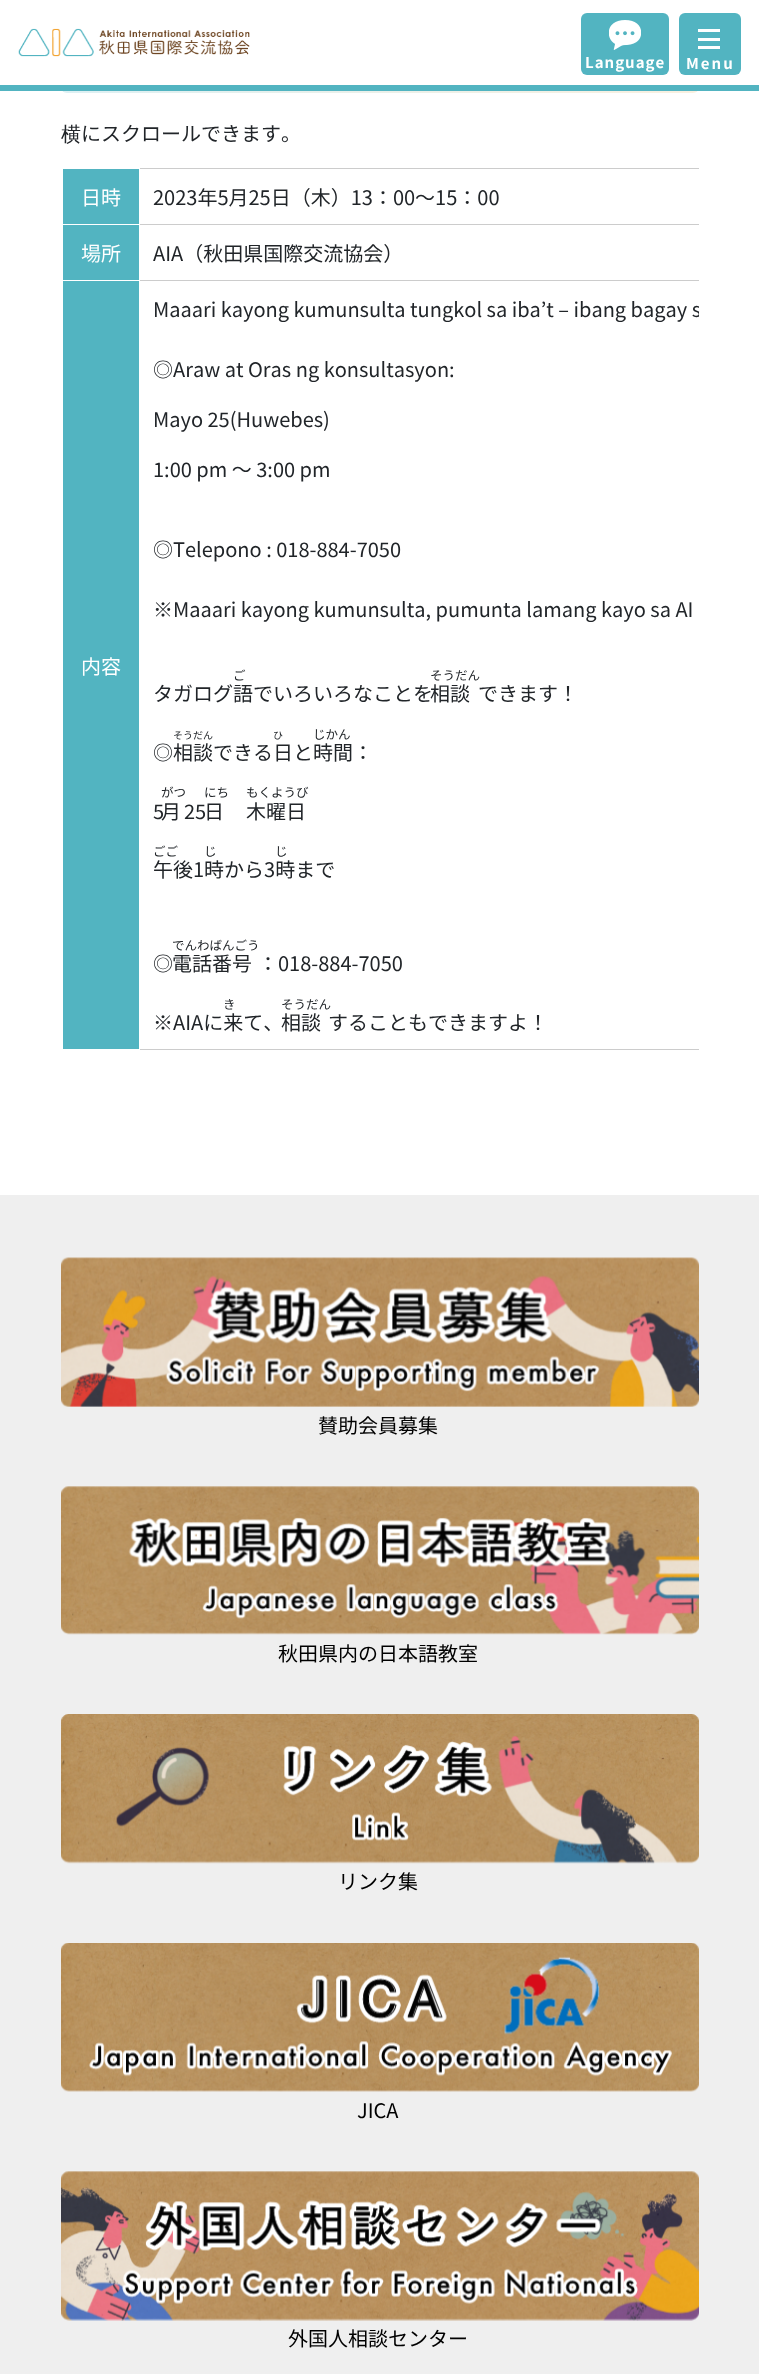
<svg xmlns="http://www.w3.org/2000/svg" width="759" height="2374">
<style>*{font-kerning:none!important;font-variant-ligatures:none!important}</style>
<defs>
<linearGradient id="g1" gradientUnits="userSpaceOnUse" x1="61" y1="-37" x2="699" y2="-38"><stop offset="0" stop-color="#ddf0f3"/><stop offset="1" stop-color="#f9f0e0"/></linearGradient>
<clipPath id="clip1"><rect x="61" y="168" width="638" height="902"/></clipPath>
</defs>
<rect width="100%" height="100%" fill="#fff"/>
<rect x="61" y="-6" width="638" height="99" rx="6" fill="url(#g1)"/>
<rect x="61" width="638" height="85" fill="#fff"/>
<rect y="85" width="759" height="6" fill="#52b4c1"/>
<image x="18" y="28" width="232" height="29" href="media/1.png"/>
<rect x="581" y="13" width="88" height="62" rx="6" fill="#52b4c1"/>
<image x="609" y="20" width="32" height="30" href="media/2.png"/>
<text x="585" y="68" style="font-family:Noto Sans JP;font-size:15px;font-weight:bold;letter-spacing:1px;fill:#fff">Language</text>
<rect x="679" y="13" width="62" height="62" rx="6" fill="#52b4c1"/>
<rect x="698" y="29" width="22" height="3" fill="#fff"/>
<rect x="698" y="38" width="22" height="3" fill="#fff"/>
<rect x="698" y="46" width="22" height="3" fill="#fff"/>
<text x="686" y="69" style="font-family:Noto Sans JP;font-size:15px;font-weight:bold;letter-spacing:2px;fill:#fff">Menu</text>
<text x="61" y="141" style="font-family:WenQuanYi Zen Hei;font-size:20px;font-weight:500;fill:#212529">横</text>
<text x="81" y="141" style="font-family:Noto Sans JP;font-size:20px;fill:#212529">にスクロールできます。</text>
<rect x="63" y="169" width="76" height="55" fill="#52b4c1"/>
<rect x="139" y="168" width="560" height="1" fill="#ccc"/>
<rect x="139" y="168" width="1" height="1" fill="#fff"/>
<rect x="139" y="224" width="560" height="1" fill="#ccc"/>
<rect x="139" y="224" width="1" height="1" fill="#fff"/>
<text x="81" y="205" style="font-family:Noto Sans JP;font-size:20px;fill:#fff">日時</text>
<text x="153" y="205" style="font-family:Noto Sans JP;font-size:20px;fill:#212529">2023年5月25日（木）13：00～15：00</text>
<rect x="63" y="225" width="76" height="55" fill="#52b4c1"/>
<rect x="139" y="280" width="560" height="1" fill="#ccc"/>
<rect x="139" y="280" width="1" height="1" fill="#fff"/>
<text x="81" y="261" style="font-family:Noto Sans JP;font-size:20px;fill:#fff">場所</text>
<text x="153" y="261" style="font-family:Noto Sans JP;font-size:20px;fill:#212529">AIA（秋田県国際交流協会）</text>
<rect x="63" y="281" width="76" height="768" fill="#52b4c1"/>
<rect x="139" y="1049" width="560" height="1" fill="#ccc"/>
<rect x="139" y="1049" width="1" height="1" fill="#fff"/>
<text x="81" y="674" style="font-family:Noto Sans JP;font-size:20px;fill:#fff">内容</text>
<g clip-path="url(#clip1)">
<text x="153" y="317" style="font-family:Noto Sans JP;font-size:20px;fill:#212529">Maaari kayong kumunsulta tungkol sa iba’t – ibang bagay s</text>
</g>
<text x="153" y="377" style="font-family:Noto Sans JP;font-size:20px;fill:#212529">◎Araw at Oras ng konsultasyon:</text>
<text x="153" y="427" style="font-family:Noto Sans JP;font-size:20px;fill:#212529">Mayo 25(Huwebes)</text>
<text x="153" y="477" style="font-family:Noto Sans JP;font-size:20px;fill:#212529">1:00 pm ～ 3:00 pm</text>
<text x="153" y="557" style="font-family:Noto Sans JP;font-size:20px;fill:#212529">◎Telepono : 018-884-7050</text>
<text x="153" y="617" style="font-family:Noto Sans JP;font-size:20px;fill:#212529">※Maaari kayong kumunsulta, pumunta lamang kayo sa AI</text>
<text x="233" y="680" style="font-family:Noto Sans JP;font-size:12.5px;fill:#212529">ご</text>
<text x="430" y="680" style="font-family:Noto Sans JP;font-size:12.5px;fill:#212529">そうだん</text>
<text x="153" y="701" style="font-family:Noto Sans JP;font-size:20px;fill:#212529">タガログ語でいろいろなことを</text>
<text x="430" y="701" style="font-family:Noto Sans JP;font-size:20px;fill:#212529">相談</text>
<text x="478" y="701" style="font-family:Noto Sans JP;font-size:20px;fill:#212529">できます！</text>
<text x="173" y="739" style="font-family:Noto Sans JP;font-size:10px;fill:#212529">そうだん</text>
<text x="273" y="739" style="font-family:Noto Sans JP;font-size:10px;fill:#212529">ひ</text>
<text x="313" y="739" style="font-family:Noto Sans JP;font-size:12.5px;fill:#212529">じかん</text>
<text x="153" y="760" style="font-family:Noto Sans JP;font-size:20px;fill:#212529">◎相談できる日と時間：</text>
<text x="153" y="819" style="font-family:Noto Sans JP;font-size:20px;fill:#212529">5</text>
<text x="161" y="797" style="font-family:Noto Sans JP;font-size:12.5px;fill:#212529">がつ</text>
<text x="161" y="819" style="font-family:Noto Sans JP;font-size:20px;fill:#212529">月</text>
<text x="184" y="819" style="font-family:Noto Sans JP;font-size:20px;fill:#212529">25</text>
<text x="204" y="797" style="font-family:Noto Sans JP;font-size:12.5px;fill:#212529">にち</text>
<text x="204" y="819" style="font-family:Noto Sans JP;font-size:20px;fill:#212529">日</text>
<text x="246" y="797" style="font-family:Noto Sans JP;font-size:12.5px;fill:#212529">もくようび</text>
<text x="246" y="819" style="font-family:Noto Sans JP;font-size:20px;fill:#212529">木曜日</text>
<text x="153" y="856" style="font-family:Noto Sans JP;font-size:12.5px;fill:#212529">ごご</text>
<text x="153" y="877" style="font-family:Noto Sans JP;font-size:20px;fill:#212529">午後1時から3時まで</text>
<text x="204" y="856" style="font-family:Noto Sans JP;font-size:12.5px;fill:#212529">じ</text>
<text x="275" y="856" style="font-family:Noto Sans JP;font-size:12.5px;fill:#212529">じ</text>
<text x="153" y="971" style="font-family:Noto Sans JP;font-size:20px;fill:#212529">◎</text>
<text x="172" y="950" style="font-family:Noto Sans JP;font-size:12.5px;fill:#212529">でんわばんごう</text>
<text x="172" y="971" style="font-family:Noto Sans JP;font-size:20px;fill:#212529">電話番号</text>
<text x="258" y="971" style="font-family:Noto Sans JP;font-size:20px;fill:#212529">：018-884-7050</text>
<text x="223" y="1009" style="font-family:Noto Sans JP;font-size:12.5px;fill:#212529">き</text>
<text x="281" y="1009" style="font-family:Noto Sans JP;font-size:12.5px;fill:#212529">そうだん</text>
<text x="281" y="1030" style="font-family:Noto Sans JP;font-size:20px;fill:#212529">相談</text>
<text x="153" y="1030" style="font-family:Noto Sans JP;font-size:20px;fill:#212529">※AIAに来て、</text>
<text x="328" y="1030" style="font-family:Noto Sans JP;font-size:20px;fill:#212529">することもできますよ！</text>
<rect y="1195" width="759" height="1179" fill="#efefef"/>
<image x="61" y="1257" width="638" height="150" href="media/3.png"/>
<text x="318" y="1433" style="font-family:Noto Sans JP;font-size:20px;fill:#000">賛助会員募集</text>
<image x="61" y="1486" width="638" height="149" href="media/4.png"/>
<text x="278" y="1661" style="font-family:Noto Sans JP;font-size:20px;fill:#000">秋田県内の日本語教室</text>
<image x="61" y="1714" width="638" height="150" href="media/5.png"/>
<text x="338" y="1889" style="font-family:Noto Sans JP;font-size:20px;fill:#000">リンク集</text>
<image x="61" y="1943" width="638" height="149" href="media/6.png"/>
<text x="357" y="2118" style="font-family:Noto Sans JP;font-size:20px;fill:#000">JICA</text>
<image x="61" y="2171" width="638" height="150" href="media/7.png"/>
<text x="288" y="2346" style="font-family:Noto Sans JP;font-size:20px;fill:#000">外国人相談センター</text>
</svg>
